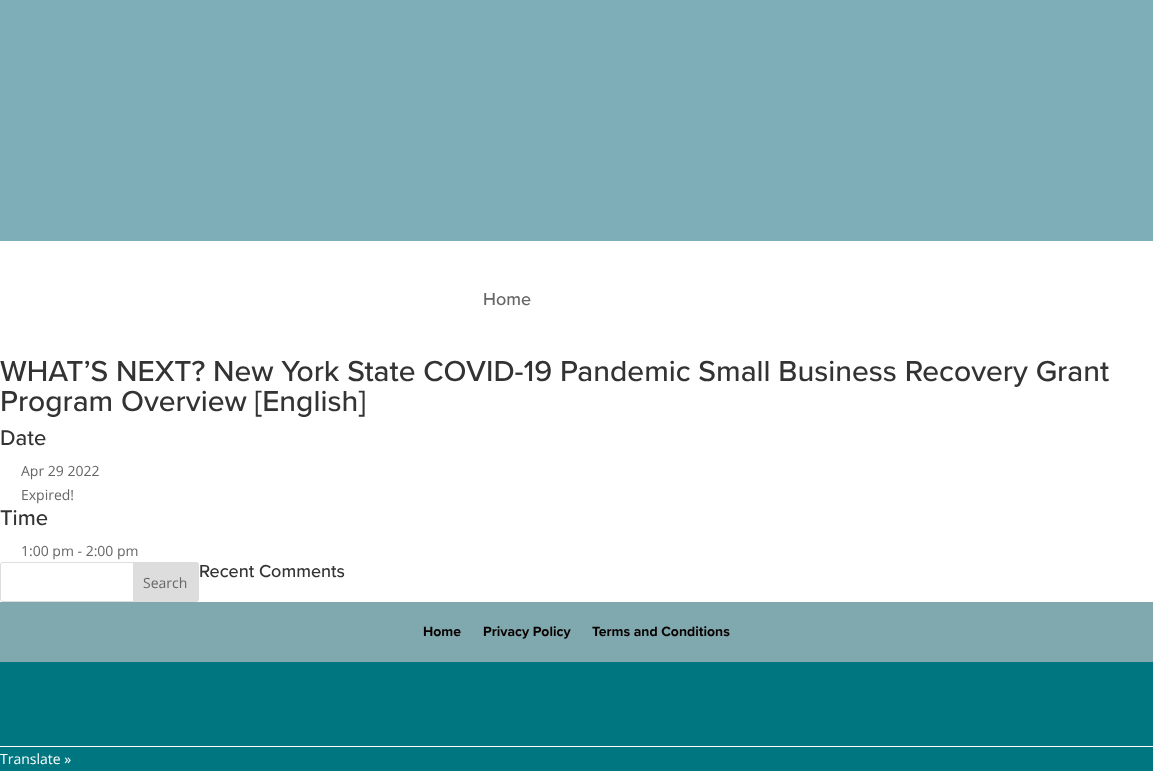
<svg xmlns="http://www.w3.org/2000/svg" width="1153" height="772">
<rect width="100%" height="100%" fill="#fff"/>
<rect width="1153" height="241" fill="#7eaeb7"/>
<text x="483" y="305" style="font-family:Proxima Nova;font-size:18px;font-weight:500;fill:#666">Home</text>
<text x="0" y="381" style="font-family:Proxima Nova;font-size:30px;font-weight:500;fill:#333">WHAT’S NEXT? New York State COVID-19 Pandemic Small Business Recovery Grant</text>
<text x="0" y="411" style="font-family:Proxima Nova;font-size:30px;font-weight:500;fill:#333">Program Overview [English]</text>
<text x="0" y="445" style="font-family:Proxima Nova;font-size:22px;font-weight:500;fill:#333">Date</text>
<text x="21" y="476" style="font-family:Open Sans;font-size:14px;fill:#666">Apr 29 2022</text>
<text x="21" y="500" style="font-family:Open Sans;font-size:14px;fill:#666">Expired!</text>
<text x="0" y="525" style="font-family:Proxima Nova;font-size:22px;font-weight:500;fill:#333">Time</text>
<text x="21" y="556" style="font-family:Open Sans;font-size:14px;fill:#666">1:00 pm - 2:00 pm</text>
<text x="199" y="577" style="font-family:Proxima Nova;font-size:18px;font-weight:500;fill:#333">Recent Comments</text>
<rect x="0.5" y="562.5" width="198" height="39" rx="2.5" fill="none" stroke="#ddd"/>
<path d="M133.5 562.5h62.5c1.5 0 2.5 1 2.5 2.5v34c0 1.5-1 2.5-2.5 2.5h-62.5z" fill="#ddd" stroke="#ddd"/>
<text x="143" y="588" style="font-family:Open Sans;font-size:14px;fill:#666">Search</text>
<rect y="602" width="1153" height="60" fill="#7fa9ae"/>
<text x="423" y="636" style="font-family:Proxima Nova;font-size:14px;font-weight:bold;fill:#0a0101">Home</text>
<text x="483" y="636" style="font-family:Proxima Nova;font-size:14px;font-weight:bold;fill:#0a0101">Privacy Policy</text>
<text x="592" y="636" style="font-family:Proxima Nova;font-size:14px;font-weight:bold;fill:#0a0101">Terms and Conditions</text>
<rect y="662" width="1153" height="84" fill="#007681"/>
<rect y="747" width="1153" height="24" fill="#007681"/>
<text x="0" y="764" style="font-family:Open Sans;font-size:14px;fill:#fff">Translate »</text>
</svg>
